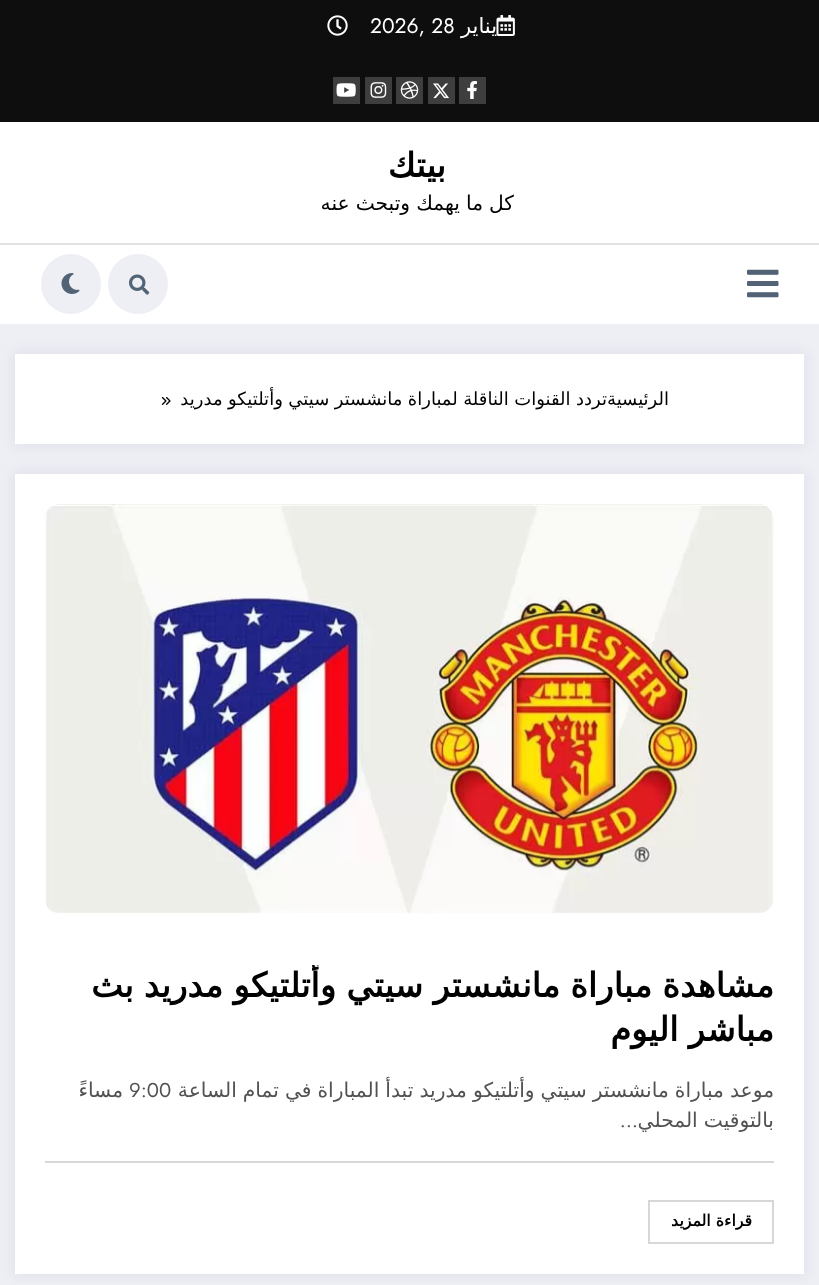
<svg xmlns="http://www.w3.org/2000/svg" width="819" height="1285">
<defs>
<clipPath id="clip1"><rect x="45" y="965" width="729" height="94"/></clipPath>
</defs>
<rect width="100%" height="100%" fill="#eeeef5"/>
<rect width="819" height="122" fill="#0e0e0e"/>
<text x="497" y="33" style="font-family:DejaVu Sans;font-size:21px;direction:rtl;fill:#fff">يناير</text>
<image x="496" y="15" width="19" height="21" href="media/1.png"/>
<text x="370" y="33" style="font-family:Jost;font-size:21px;fill:#fff">2026, 28</text>
<image x="327" y="15" width="21" height="21" href="media/2.png"/>
<rect x="459" y="77" width="27" height="27" fill="#3e3e3e"/>
<image x="467" y="81" width="10" height="18" href="media/3.png"/>
<rect x="428" y="77" width="27" height="27" fill="#3e3e3e"/>
<image x="433" y="83" width="16" height="16" href="media/4.png"/>
<rect x="396" y="77" width="27" height="27" fill="#3e3e3e"/>
<image x="400" y="81" width="19" height="18" href="media/5.png"/>
<rect x="365" y="77" width="27" height="27" fill="#3e3e3e"/>
<image x="370" y="82" width="17" height="16" href="media/6.png"/>
<rect x="333" y="77" width="27" height="27" fill="#3e3e3e"/>
<image x="336" y="83" width="20" height="14" href="media/7.png"/>
<rect y="122" width="819" height="202" fill="#fff"/>
<text x="446" y="177" style="font-family:DejaVu Sans;font-size:33.75px;font-weight:bold;direction:rtl;fill:#000">بيتك</text>
<text x="514" y="210" word-spacing="-0.4" style="font-family:DejaVu Sans;font-size:20.25px;direction:rtl;fill:#000">كل ما يهمك وتبحث عنه</text>
<rect y="243" width="819" height="2" fill="#e1e1e1"/>
<image x="747" y="269" width="32" height="29" href="media/8.png"/>
<circle cx="138" cy="284" r="30" fill="#eeeef5"/>
<image x="129" y="274" width="21" height="21" href="media/9.png"/>
<circle cx="71" cy="284" r="30" fill="#eeeef5"/>
<image x="61" y="273" width="19" height="21" href="media/10.png"/>
<rect x="12" y="351" width="795" height="96" fill="#1717230d" filter="blur(6px)"/>
<rect x="15" y="354" width="789" height="90" fill="#fff"/>
<text x="669" y="405" style="font-family:DejaVu Sans;font-size:18px;direction:rtl;fill:#000">الرئيسية</text>
<text x="607" y="405" word-spacing="-0.25" style="font-family:DejaVu Sans;font-size:18px;direction:rtl;fill:#000">تردد القنوات الناقلة لمباراة مانشستر سيتي وأتلتيكو مدريد</text>
<image x="161" y="396" width="10" height="9" href="media/11.png"/>
<rect x="12" y="471" width="795" height="806" fill="#1717230d" filter="blur(6px)"/>
<rect x="15" y="474" width="789" height="800" fill="#fff"/>
<image x="45" y="504" width="729" height="410" href="media/12.png"/>
<g clip-path="url(#clip1)">
<text x="774" y="997" word-spacing="-0.5" style="font-family:DejaVu Sans;font-size:33.75px;font-weight:bold;direction:rtl;fill:#000">مشاهدة مباراة مانشستر سيتي وأتلتيكو مدريد بث</text>
</g>
<text x="774" y="1041" word-spacing="-0.5" style="font-family:DejaVu Sans;font-size:33.75px;font-weight:bold;direction:rtl;fill:#000">مباشر اليوم</text>
<rect x="45" y="1161" width="729" height="2" fill="#d7d7d7"/>
<text x="774" y="1097" word-spacing="-0.4" style="font-family:DejaVu Sans;font-size:20.25px;direction:rtl;fill:#525252">موعد مباراة مانشستر سيتي وأتلتيكو مدريد تبدأ المباراة في تمام الساعة</text>
<text x="129" y="1097" style="font-family:Jost;font-size:20.25px;fill:#525252">9:00</text>
<text x="123" y="1097" style="font-family:DejaVu Sans;font-size:20.25px;direction:rtl;fill:#525252">مساءً</text>
<text x="774" y="1127" word-spacing="-0.4" style="font-family:DejaVu Sans;font-size:20.25px;direction:rtl;fill:#525252">بالتوقيت المحلي</text>
<text x="638" y="1127" style="font-family:Jost;font-size:20.25px;direction:rtl;fill:#525252">…</text>
<rect x="649" y="1201" width="124" height="42" fill="none" stroke="#d7d7d7" stroke-width="2"/>
<text x="752" y="1226" style="font-family:DejaVu Sans;font-size:15.75px;font-weight:bold;direction:rtl;fill:#000">قراءة المزيد</text>
</svg>
